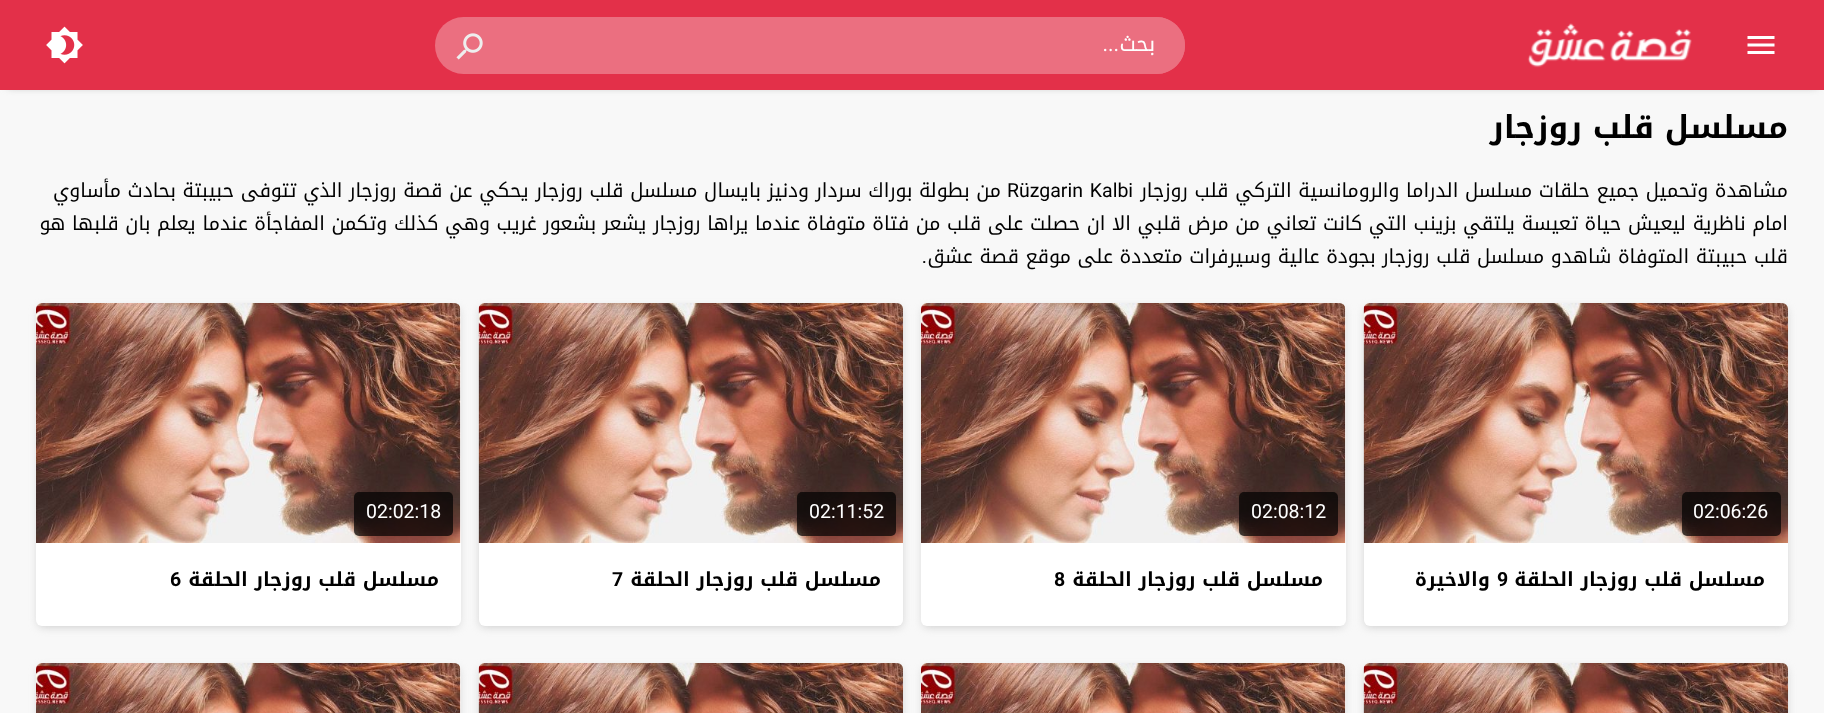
<svg xmlns="http://www.w3.org/2000/svg" width="1824" height="713">
<rect width="100%" height="100%" fill="#f8f8f8"/>
<rect x="8" y="11" width="1809" height="75" fill="#999" filter="blur(4px)"/>
<rect width="1824" height="90" fill="#e33049"/>
<image x="1747" y="36" width="28" height="18" href="media/1.png"/>
<image x="1527" y="23" width="165" height="45" href="media/2.png"/>
<rect x="435" y="17" width="750" height="57" rx="28.5" fill="#eb6f80"/>
<path d="M510 17h646.5c15.5 0 28.5 13 28.5 28.5c0 15.5-13 28.5-28.5 28.5h-646.5z" fill="#eb6f80"/>
<text x="1155" y="51" style="font-family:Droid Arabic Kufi;font-size:21px;direction:rtl;fill:#fff">بحث</text>
<text x="1119" y="51" style="font-family:Roboto;font-size:21px;direction:rtl;fill:#fff">...</text>
<image x="456" y="33" width="27" height="27" href="media/3.png"/>
<image x="46" y="26" width="37" height="38" href="media/4.png"/>
<text x="1788" y="138" style="font-family:Droid Arabic Kufi;font-size:31.5px;font-weight:bold;direction:rtl;fill:#000">مسلسل قلب روزجار</text>
<text x="1788" y="197" style="font-family:Droid Arabic Kufi;font-size:19.5px;direction:rtl;fill:#000">مشاهدة وتحميل جميع حلقات مسلسل الدراما والرومانسية التركي قلب روزجار</text>
<text x="1007" y="197" word-spacing="2" style="font-family:Roboto;font-size:19.5px;fill:#000">Rüzgarin Kalbi</text>
<text x="1001" y="197" style="font-family:Droid Arabic Kufi;font-size:19.5px;direction:rtl;fill:#000">من بطولة بوراك سردار ودنيز بايسال مسلسل قلب روزجار يحكي عن قصة روزجار الذي تتوفى حبيبتة بحادث مأساوي</text>
<text x="1788" y="230" style="font-family:Droid Arabic Kufi;font-size:19.5px;direction:rtl;fill:#000">امام ناظرية ليعيش حياة تعيسة يلتقي بزينب التي كانت تعاني من مرض قلبي الا ان حصلت على قلب من فتاة متوفاة عندما يراها روزجار يشعر بشعور غريب وهي كذلك وتكمن المفاجأة عندما يعلم بان قلبها هو</text>
<text x="1788" y="263" style="font-family:Droid Arabic Kufi;font-size:19.5px;direction:rtl;fill:#000">قلب حبيبتة المتوفاة شاهدو مسلسل قلب روزجار بجودة عالية وسيرفرات متعددة على موقع قصة عشق</text>
<text x="927" y="263" style="font-family:Roboto;font-size:19.5px;direction:rtl;fill:#000">.</text>
<rect x="1365" y="308" width="422" height="319" rx="5" fill="#ccc" filter="blur(4px)"/>
<rect x="1364" y="303" width="424" height="323" rx="6" fill="#fff"/>
<image x="1363" y="303" width="425" height="240" href="media/5.png"/>
<rect x="1682" y="492" width="99" height="44" rx="5" fill="#000000b3"/>
<text x="1693" y="518" style="font-family:Roboto;font-size:19.5px;fill:#fff">02:06:26</text>
<text x="1765" y="586" style="font-family:Droid Arabic Kufi;font-size:19.5px;font-weight:bold;direction:rtl;fill:#000">مسلسل قلب روزجار الحلقة</text>
<text x="1497" y="586" style="font-family:Roboto;font-size:19.5px;font-weight:bold;fill:#000">9</text>
<text x="1490" y="586" style="font-family:Droid Arabic Kufi;font-size:19.5px;font-weight:bold;direction:rtl;fill:#000">والاخيرة</text>
<rect x="923" y="308" width="421" height="319" rx="5" fill="#ccc" filter="blur(4px)"/>
<rect x="921" y="303" width="425" height="323" rx="6" fill="#fff"/>
<image x="921" y="303" width="425" height="240" href="media/6.png"/>
<rect x="1239" y="492" width="99" height="44" rx="5" fill="#000000b3"/>
<text x="1251" y="518" style="font-family:Roboto;font-size:19.5px;fill:#fff">02:08:12</text>
<text x="1323" y="586" style="font-family:Droid Arabic Kufi;font-size:19.5px;font-weight:bold;direction:rtl;fill:#000">مسلسل قلب روزجار الحلقة</text>
<text x="1054" y="586" style="font-family:Roboto;font-size:19.5px;font-weight:bold;fill:#000">8</text>
<rect x="480" y="308" width="422" height="319" rx="5" fill="#ccc" filter="blur(4px)"/>
<rect x="479" y="303" width="424" height="323" rx="6" fill="#fff"/>
<image x="478" y="303" width="425" height="240" href="media/5.png"/>
<rect x="797" y="492" width="99" height="44" rx="5" fill="#000000b3"/>
<text x="809" y="518" style="font-family:Roboto;font-size:19.5px;fill:#fff">02:11:52</text>
<text x="881" y="586" style="font-family:Droid Arabic Kufi;font-size:19.5px;font-weight:bold;direction:rtl;fill:#000">مسلسل قلب روزجار الحلقة</text>
<text x="612" y="586" style="font-family:Roboto;font-size:19.5px;font-weight:bold;fill:#000">7</text>
<rect x="38" y="308" width="421" height="319" rx="5" fill="#ccc" filter="blur(4px)"/>
<rect x="36" y="303" width="425" height="323" rx="6" fill="#fff"/>
<image x="36" y="303" width="425" height="240" href="media/6.png"/>
<rect x="354" y="492" width="99" height="44" rx="5" fill="#000000b3"/>
<text x="366" y="518" style="font-family:Roboto;font-size:19.5px;fill:#fff">02:02:18</text>
<text x="439" y="586" style="font-family:Droid Arabic Kufi;font-size:19.5px;font-weight:bold;direction:rtl;fill:#000">مسلسل قلب روزجار الحلقة</text>
<text x="170" y="586" style="font-family:Roboto;font-size:19.5px;font-weight:bold;fill:#000">6</text>
<rect x="1365" y="668" width="422" height="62" rx="5" fill="#ccc" filter="blur(4px)"/>
<image x="1363" y="663" width="425" height="50" href="media/7.png"/>
<rect x="923" y="668" width="421" height="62" rx="5" fill="#ccc" filter="blur(4px)"/>
<rect x="921" y="663" width="425" height="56" rx="6" fill="#fff"/>
<image x="921" y="663" width="425" height="50" href="media/8.png"/>
<rect x="480" y="668" width="422" height="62" rx="5" fill="#ccc" filter="blur(4px)"/>
<image x="478" y="663" width="425" height="50" href="media/7.png"/>
<rect x="38" y="668" width="421" height="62" rx="5" fill="#ccc" filter="blur(4px)"/>
<rect x="36" y="663" width="425" height="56" rx="6" fill="#fff"/>
<image x="36" y="663" width="425" height="50" href="media/8.png"/>
</svg>
